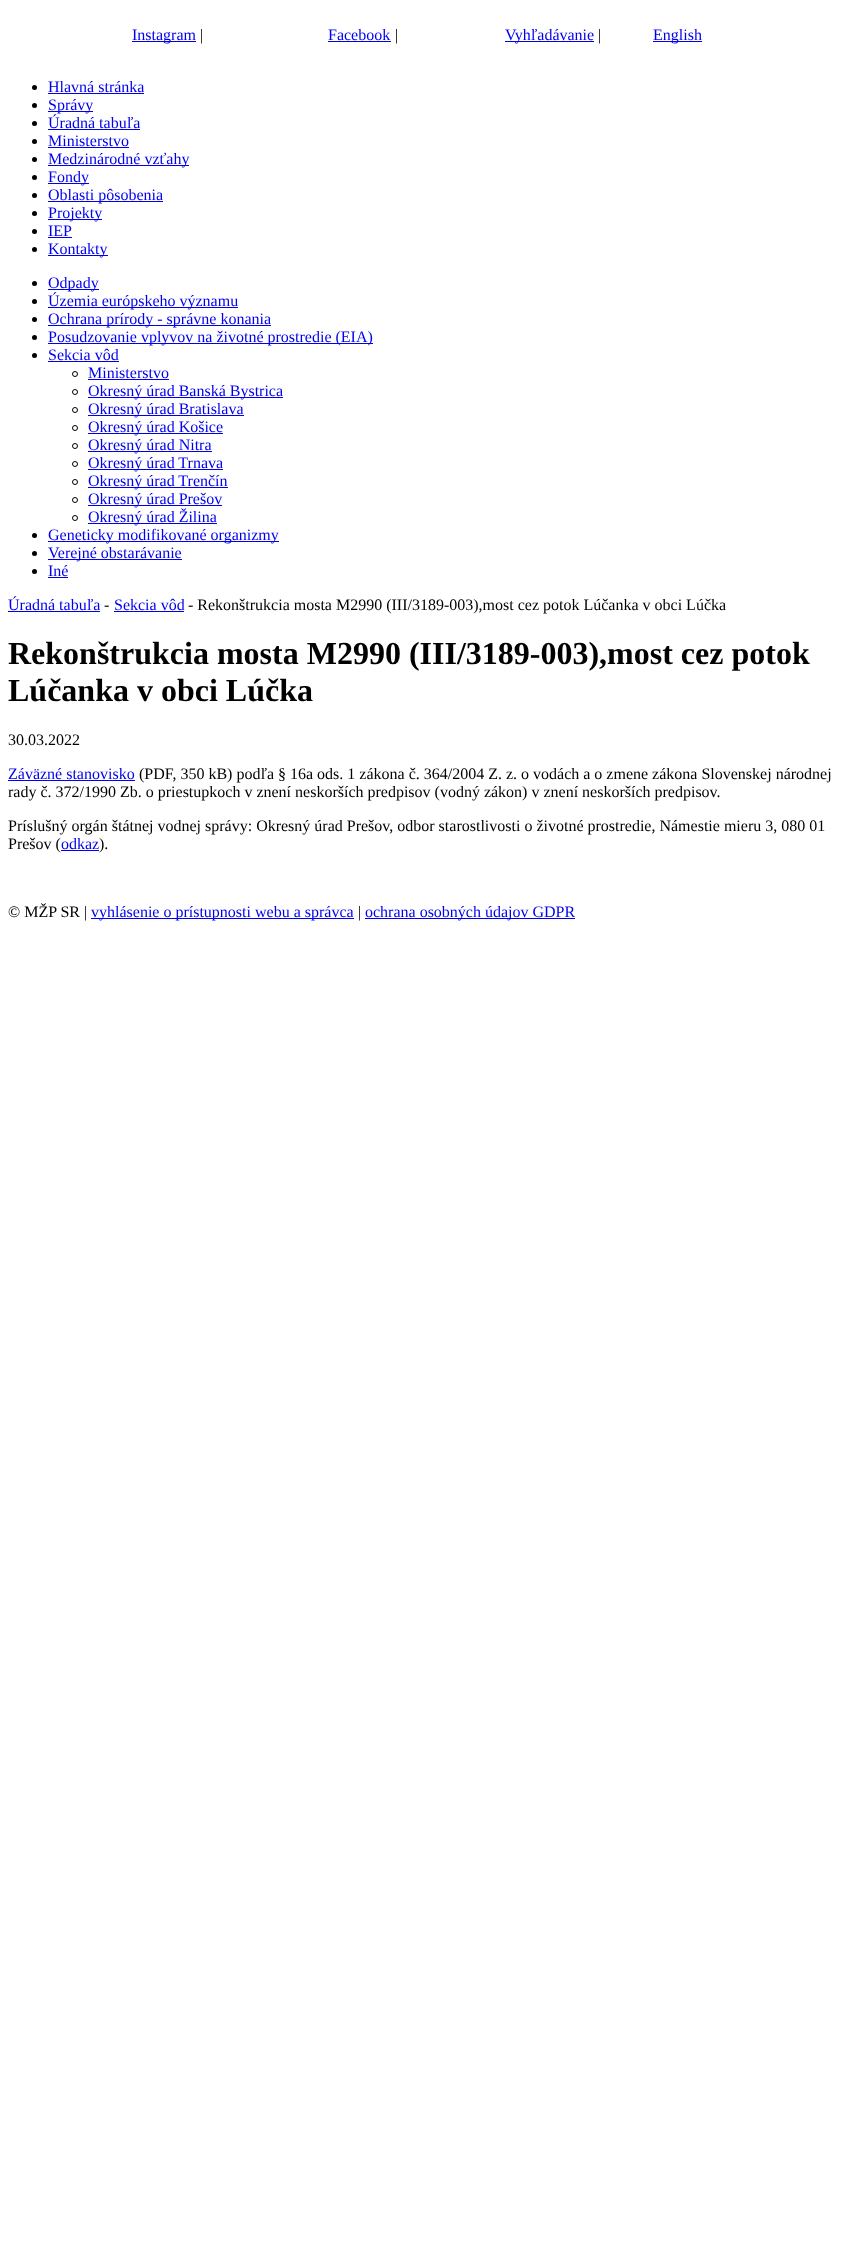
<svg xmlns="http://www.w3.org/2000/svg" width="858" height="2253">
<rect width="100%" height="100%" fill="#fff"/>
<rect x="132" y="41" width="64" height="1" fill="#00e"/>
<text x="132" y="40" style="font-family:Liberation Serif;font-size:16px;fill:#00e">Instagram</text>
<text x="200" y="40" style="font-family:Liberation Serif;font-size:16px;fill:#000">|</text>
<text x="328" y="40" style="font-family:Liberation Serif;font-size:16px;fill:#00e">Facebook</text>
<rect x="328" y="41" width="63" height="1" fill="#00e"/>
<text x="395" y="40" style="font-family:Liberation Serif;font-size:16px;fill:#000">|</text>
<rect x="505" y="41" width="89" height="1" fill="#00e"/>
<text x="505" y="40" style="font-family:Liberation Serif;font-size:16px;fill:#00e">Vyhľadávanie</text>
<text x="598" y="40" style="font-family:Liberation Serif;font-size:16px;fill:#000">|</text>
<rect x="653" y="41" width="49" height="1" fill="#00e"/>
<text x="653" y="40" style="font-family:Liberation Serif;font-size:16px;fill:#00e">English</text>
<circle cx="34.5" cy="87.5" r="2.5" fill="#000"/>
<text x="48" y="92" style="font-family:Liberation Serif;font-size:16px;fill:#00e">Hlavná stránka</text>
<rect x="48" y="93" width="96" height="1" fill="#00e"/>
<circle cx="34.5" cy="105.5" r="2.5" fill="#000"/>
<rect x="48" y="111" width="45" height="1" fill="#00e"/>
<text x="48" y="110" style="font-family:Liberation Serif;font-size:16px;fill:#00e">Správy</text>
<circle cx="34.5" cy="123.5" r="2.5" fill="#000"/>
<text x="48" y="128" style="font-family:Liberation Serif;font-size:16px;fill:#00e">Úradná tabuľa</text>
<rect x="48" y="129" width="92" height="1" fill="#00e"/>
<circle cx="34.5" cy="141.5" r="2.5" fill="#000"/>
<text x="48" y="146" style="font-family:Liberation Serif;font-size:16px;fill:#00e">Ministerstvo</text>
<rect x="48" y="147" width="81" height="1" fill="#00e"/>
<circle cx="34.5" cy="159.5" r="2.5" fill="#000"/>
<rect x="48" y="165" width="141" height="1" fill="#00e"/>
<text x="48" y="164" style="font-family:Liberation Serif;font-size:16px;fill:#00e">Medzinárodné vzťahy</text>
<circle cx="34.5" cy="177.5" r="2.5" fill="#000"/>
<rect x="48" y="183" width="41" height="1" fill="#00e"/>
<text x="48" y="182" style="font-family:Liberation Serif;font-size:16px;fill:#00e">Fondy</text>
<circle cx="34.5" cy="195.5" r="2.5" fill="#000"/>
<rect x="48" y="201" width="115" height="1" fill="#00e"/>
<text x="48" y="200" style="font-family:Liberation Serif;font-size:16px;fill:#00e">Oblasti pôsobenia</text>
<circle cx="34.5" cy="213.5" r="2.5" fill="#000"/>
<rect x="48" y="219" width="54" height="1" fill="#00e"/>
<text x="48" y="218" style="font-family:Liberation Serif;font-size:16px;fill:#00e">Projekty</text>
<circle cx="34.5" cy="231.5" r="2.5" fill="#000"/>
<text x="48" y="236" style="font-family:Liberation Serif;font-size:16px;fill:#00e">IEP</text>
<rect x="48" y="237" width="24" height="1" fill="#00e"/>
<circle cx="34.5" cy="249.5" r="2.5" fill="#000"/>
<rect x="48" y="255" width="60" height="1" fill="#00e"/>
<text x="48" y="254" style="font-family:Liberation Serif;font-size:16px;fill:#00e">Kontakty</text>
<circle cx="34.5" cy="283.5" r="2.5" fill="#000"/>
<rect x="48" y="289" width="51" height="1" fill="#00e"/>
<text x="48" y="288" style="font-family:Liberation Serif;font-size:16px;fill:#00e">Odpady</text>
<circle cx="34.5" cy="301.5" r="2.5" fill="#000"/>
<rect x="48" y="307" width="190" height="1" fill="#00e"/>
<text x="48" y="306" style="font-family:Liberation Serif;font-size:16px;fill:#00e">Územia európskeho významu</text>
<circle cx="34.5" cy="319.5" r="2.5" fill="#000"/>
<rect x="48" y="325" width="223" height="1" fill="#00e"/>
<text x="48" y="324" style="font-family:Liberation Serif;font-size:16px;fill:#00e">Ochrana prírody - správne konania</text>
<circle cx="34.5" cy="337.5" r="2.5" fill="#000"/>
<rect x="48" y="343" width="325" height="1" fill="#00e"/>
<text x="48" y="342" style="font-family:Liberation Serif;font-size:16px;fill:#00e">Posudzovanie vplyvov na životné prostredie (EIA)</text>
<circle cx="34.5" cy="355.5" r="2.5" fill="#000"/>
<text x="48" y="360" style="font-family:Liberation Serif;font-size:16px;fill:#00e">Sekcia vôd</text>
<rect x="48" y="361" width="71" height="1" fill="#00e"/>
<circle cx="75" cy="374" r="2.5" fill="none" stroke="#000"/>
<text x="88" y="378" style="font-family:Liberation Serif;font-size:16px;fill:#00e">Ministerstvo</text>
<rect x="88" y="379" width="81" height="1" fill="#00e"/>
<circle cx="75" cy="392" r="2.5" fill="none" stroke="#000"/>
<rect x="88" y="397" width="195" height="1" fill="#00e"/>
<text x="88" y="396" style="font-family:Liberation Serif;font-size:16px;fill:#00e">Okresný úrad Banská Bystrica</text>
<circle cx="75" cy="410" r="2.5" fill="none" stroke="#000"/>
<rect x="88" y="415" width="156" height="1" fill="#00e"/>
<text x="88" y="414" style="font-family:Liberation Serif;font-size:16px;fill:#00e">Okresný úrad Bratislava</text>
<circle cx="75" cy="428" r="2.5" fill="none" stroke="#000"/>
<rect x="88" y="433" width="135" height="1" fill="#00e"/>
<text x="88" y="432" style="font-family:Liberation Serif;font-size:16px;fill:#00e">Okresný úrad Košice</text>
<circle cx="75" cy="446" r="2.5" fill="none" stroke="#000"/>
<rect x="88" y="451" width="124" height="1" fill="#00e"/>
<text x="88" y="450" style="font-family:Liberation Serif;font-size:16px;fill:#00e">Okresný úrad Nitra</text>
<circle cx="75" cy="464" r="2.5" fill="none" stroke="#000"/>
<rect x="88" y="469" width="135" height="1" fill="#00e"/>
<text x="88" y="468" style="font-family:Liberation Serif;font-size:16px;fill:#00e">Okresný úrad Trnava</text>
<circle cx="75" cy="482" r="2.5" fill="none" stroke="#000"/>
<rect x="88" y="487" width="140" height="1" fill="#00e"/>
<text x="88" y="486" style="font-family:Liberation Serif;font-size:16px;fill:#00e">Okresný úrad Trenčín</text>
<circle cx="75" cy="500" r="2.5" fill="none" stroke="#000"/>
<rect x="88" y="505" width="134" height="1" fill="#00e"/>
<text x="88" y="504" style="font-family:Liberation Serif;font-size:16px;fill:#00e">Okresný úrad Prešov</text>
<circle cx="75" cy="518" r="2.5" fill="none" stroke="#000"/>
<rect x="88" y="523" width="129" height="1" fill="#00e"/>
<text x="88" y="522" style="font-family:Liberation Serif;font-size:16px;fill:#00e">Okresný úrad Žilina</text>
<circle cx="34.5" cy="535.5" r="2.5" fill="#000"/>
<rect x="48" y="541" width="231" height="1" fill="#00e"/>
<text x="48" y="540" style="font-family:Liberation Serif;font-size:16px;fill:#00e">Geneticky modifikované organizmy</text>
<circle cx="34.5" cy="553.5" r="2.5" fill="#000"/>
<rect x="48" y="559" width="134" height="1" fill="#00e"/>
<text x="48" y="558" style="font-family:Liberation Serif;font-size:16px;fill:#00e">Verejné obstarávanie</text>
<circle cx="34.5" cy="571.5" r="2.5" fill="#000"/>
<text x="48" y="576" style="font-family:Liberation Serif;font-size:16px;fill:#00e">Iné</text>
<rect x="48" y="577" width="20" height="1" fill="#00e"/>
<text x="8" y="610" style="font-family:Liberation Serif;font-size:16px;fill:#00e">Úradná tabuľa</text>
<rect x="8" y="611" width="92" height="1" fill="#00e"/>
<text x="104" y="610" style="font-family:Liberation Serif;font-size:16px;fill:#000">-</text>
<text x="114" y="610" style="font-family:Liberation Serif;font-size:16px;fill:#00e">Sekcia vôd</text>
<rect x="114" y="611" width="70" height="1" fill="#00e"/>
<text x="188" y="610" style="font-family:Liberation Serif;font-size:16px;fill:#000">- Rekonštrukcia mosta M2990 (III/3189-003),most cez potok Lúčanka v obci Lúčka</text>
<text x="8" y="664" style="font-family:Liberation Serif;font-size:32px;font-weight:bold;fill:#000">Rekonštrukcia mosta M2990 (III/3189-003),most cez potok</text>
<text x="8" y="701" style="font-family:Liberation Serif;font-size:32px;font-weight:bold;fill:#000">Lúčanka v obci Lúčka</text>
<text x="8" y="745" style="font-family:Liberation Serif;font-size:16px;fill:#000">30.03.2022</text>
<text x="8" y="779" style="font-family:Liberation Serif;font-size:16px;fill:#00e">Záväzné stanovisko</text>
<rect x="8" y="780" width="127" height="1" fill="#00e"/>
<text x="139" y="779" style="font-family:Liberation Serif;font-size:16px;fill:#000">(PDF, 350 kB) podľa § 16a ods. 1 zákona č. 364/2004 Z. z. o vodách a o zmene zákona Slovenskej národnej</text>
<text x="8" y="797" style="font-family:Liberation Serif;font-size:16px;fill:#000">rady č. 372/1990 Zb. o priestupkoch v znení neskorších predpisov (vodný zákon) v znení neskorších predpisov.</text>
<text x="8" y="831" style="font-family:Liberation Serif;font-size:16px;fill:#000">Príslušný orgán štátnej vodnej správy: Okresný úrad Prešov, odbor starostlivosti o životné prostredie, Námestie mieru 3, 080 01</text>
<text x="8" y="849" style="font-family:Liberation Serif;font-size:16px;fill:#000">Prešov (</text>
<text x="61" y="849" style="font-family:Liberation Serif;font-size:16px;fill:#00e">odkaz</text>
<rect x="61" y="850" width="38" height="1" fill="#00e"/>
<text x="99" y="849" style="font-family:Liberation Serif;font-size:16px;fill:#000">).</text>
<text x="8" y="917" style="font-family:Liberation Serif;font-size:16px;fill:#000">© MŽP SR |</text>
<rect x="91" y="918" width="263" height="1" fill="#00e"/>
<text x="91" y="917" style="font-family:Liberation Serif;font-size:16px;fill:#00e">vyhlásenie o prístupnosti webu a správca</text>
<text x="358" y="917" style="font-family:Liberation Serif;font-size:16px;fill:#000">|</text>
<rect x="365" y="918" width="210" height="1" fill="#00e"/>
<text x="365" y="917" style="font-family:Liberation Serif;font-size:16px;fill:#00e">ochrana osobných údajov GDPR</text>
</svg>
